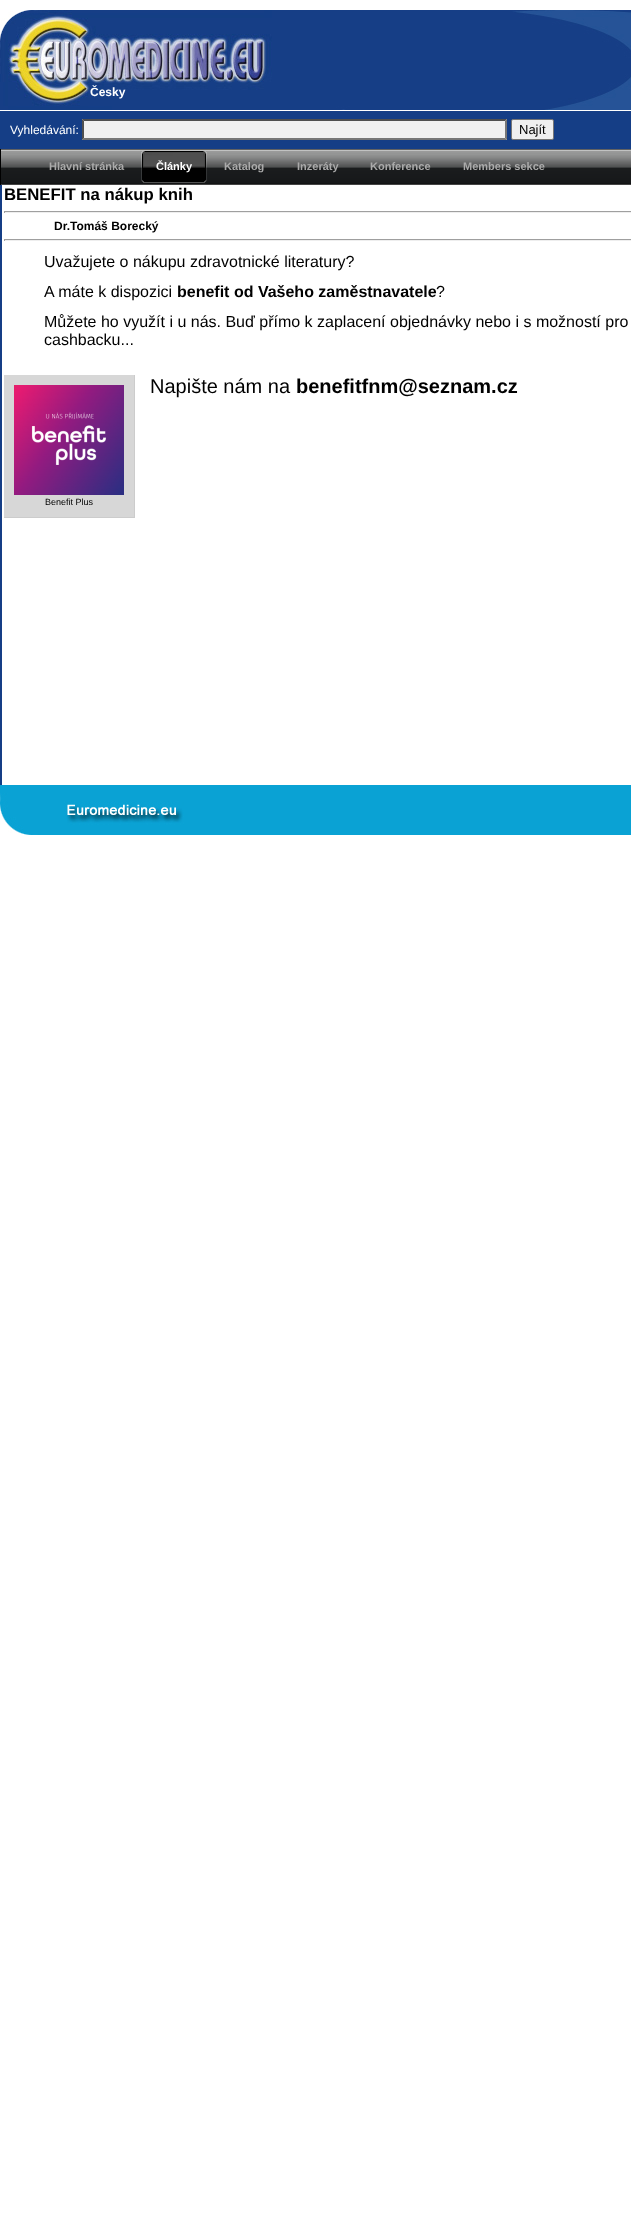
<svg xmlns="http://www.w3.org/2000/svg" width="631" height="2216">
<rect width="100%" height="100%" fill="#fff"/>
<image x="0" y="10" width="631" height="100" href="media/1.png"/>
<text x="90" y="96" style="font-family:Liberation Sans;font-size:12px;font-weight:bold;fill:#fff">Česky</text>
<rect y="111" width="631" height="38" fill="#153e86"/>
<text x="10" y="134" style="font-family:Liberation Sans;font-size:12px;fill:#fff">Vyhledávání:</text>
<rect x="82" y="119" width="425" height="21" fill="#f0f0f0"/>
<path d="M82 119h425l-2 2h-421z" fill="#4f4f4f"/>
<path d="M507 119v21l-2-2v-17z" fill="#767676"/>
<path d="M507 140h-425l2-2h421z" fill="#767676"/>
<path d="M82 140v-21l2 2v17z" fill="#4f4f4f"/>
<rect x="511.5" y="119.5" width="42" height="20" rx="1.5" fill="#efefef" stroke="#767676"/>
<text x="519" y="134" style="font-family:Liberation Sans;font-size:13px;fill:#000">Najít</text>
<image x="1" y="149" width="630" height="35" href="media/2.png"/>
<rect y="184" width="631" height="1" fill="#444"/>
<rect y="149" width="1" height="36" fill="#000"/>
<text x="49" y="170" style="font-family:Liberation Sans;font-size:11px;font-weight:bold;fill:#aaa">Hlavní stránka</text>
<image x="141" y="151" width="62" height="32" href="media/3.png"/>
<image x="203" y="151" width="5" height="32" href="media/4.png"/>
<text x="156" y="170" style="font-family:Liberation Sans;font-size:11px;font-weight:bold;fill:#fff">Články</text>
<text x="224" y="170" style="font-family:Liberation Sans;font-size:11px;font-weight:bold;fill:#aaa">Katalog</text>
<text x="297" y="170" style="font-family:Liberation Sans;font-size:11px;font-weight:bold;fill:#aaa">Inzeráty</text>
<text x="370" y="170" style="font-family:Liberation Sans;font-size:11px;font-weight:bold;fill:#aaa">Konference</text>
<text x="463" y="170" style="font-family:Liberation Sans;font-size:11px;font-weight:bold;fill:#aaa">Members sekce</text>
<rect y="185" width="2" height="600" fill="#153e86"/>
<text x="4" y="200" style="font-family:Liberation Sans;font-size:16.75px;font-weight:bold;fill:#000">BENEFIT na nákup knih</text>
<rect x="4" y="211" width="627" height="1" fill="#9f9f9f"/>
<rect x="4" y="212" width="627" height="1" fill="#eee"/>
<rect x="4" y="211" width="1" height="2" fill="#9f9f9f"/>
<text x="54" y="230" style="font-family:Liberation Sans;font-size:12px;font-weight:bold;fill:#000">Dr.Tomáš Borecký</text>
<rect x="4" y="239" width="627" height="1" fill="#9f9f9f"/>
<rect x="4" y="240" width="627" height="1" fill="#eee"/>
<rect x="4" y="239" width="1" height="2" fill="#9f9f9f"/>
<text x="44" y="267" style="font-family:Liberation Sans;font-size:16px;fill:#000">Uvažujete o nákupu zdravotnické literatury?</text>
<text x="44" y="297" style="font-family:Liberation Sans;font-size:16px;fill:#000">A máte k dispozici</text>
<text x="177" y="297" style="font-family:Liberation Sans;font-size:16px;font-weight:bold;fill:#000">benefit od Vašeho zaměstnavatele</text>
<text x="436" y="297" style="font-family:Liberation Sans;font-size:16px;fill:#000">?</text>
<text x="44" y="327" style="font-family:Liberation Sans;font-size:16px;fill:#000">Můžete ho využít i u nás. Buď přímo k zaplacení objednávky nebo i s možností pro</text>
<text x="44" y="345" style="font-family:Liberation Sans;font-size:16px;fill:#000">cashbacku...</text>
<text x="150" y="393" style="font-family:Liberation Sans;font-size:20px;fill:#000">Napište nám na</text>
<text x="296" y="393" style="font-family:Liberation Sans;font-size:20px;font-weight:bold;fill:#000">benefitfnm@seznam.cz</text>
<rect x="4" y="375" width="130" height="142" fill="#d7d7d7"/>
<rect x="134" y="375" width="1" height="143" fill="#ccc"/>
<rect x="4" y="517" width="131" height="1" fill="#ccc"/>
<image x="14" y="385" width="110" height="110" href="media/5.png"/>
<text x="45" y="505" style="font-family:Liberation Sans;font-size:9px;fill:#000">Benefit Plus</text>
<image x="0" y="785" width="631" height="50" href="media/6.png"/>
</svg>
